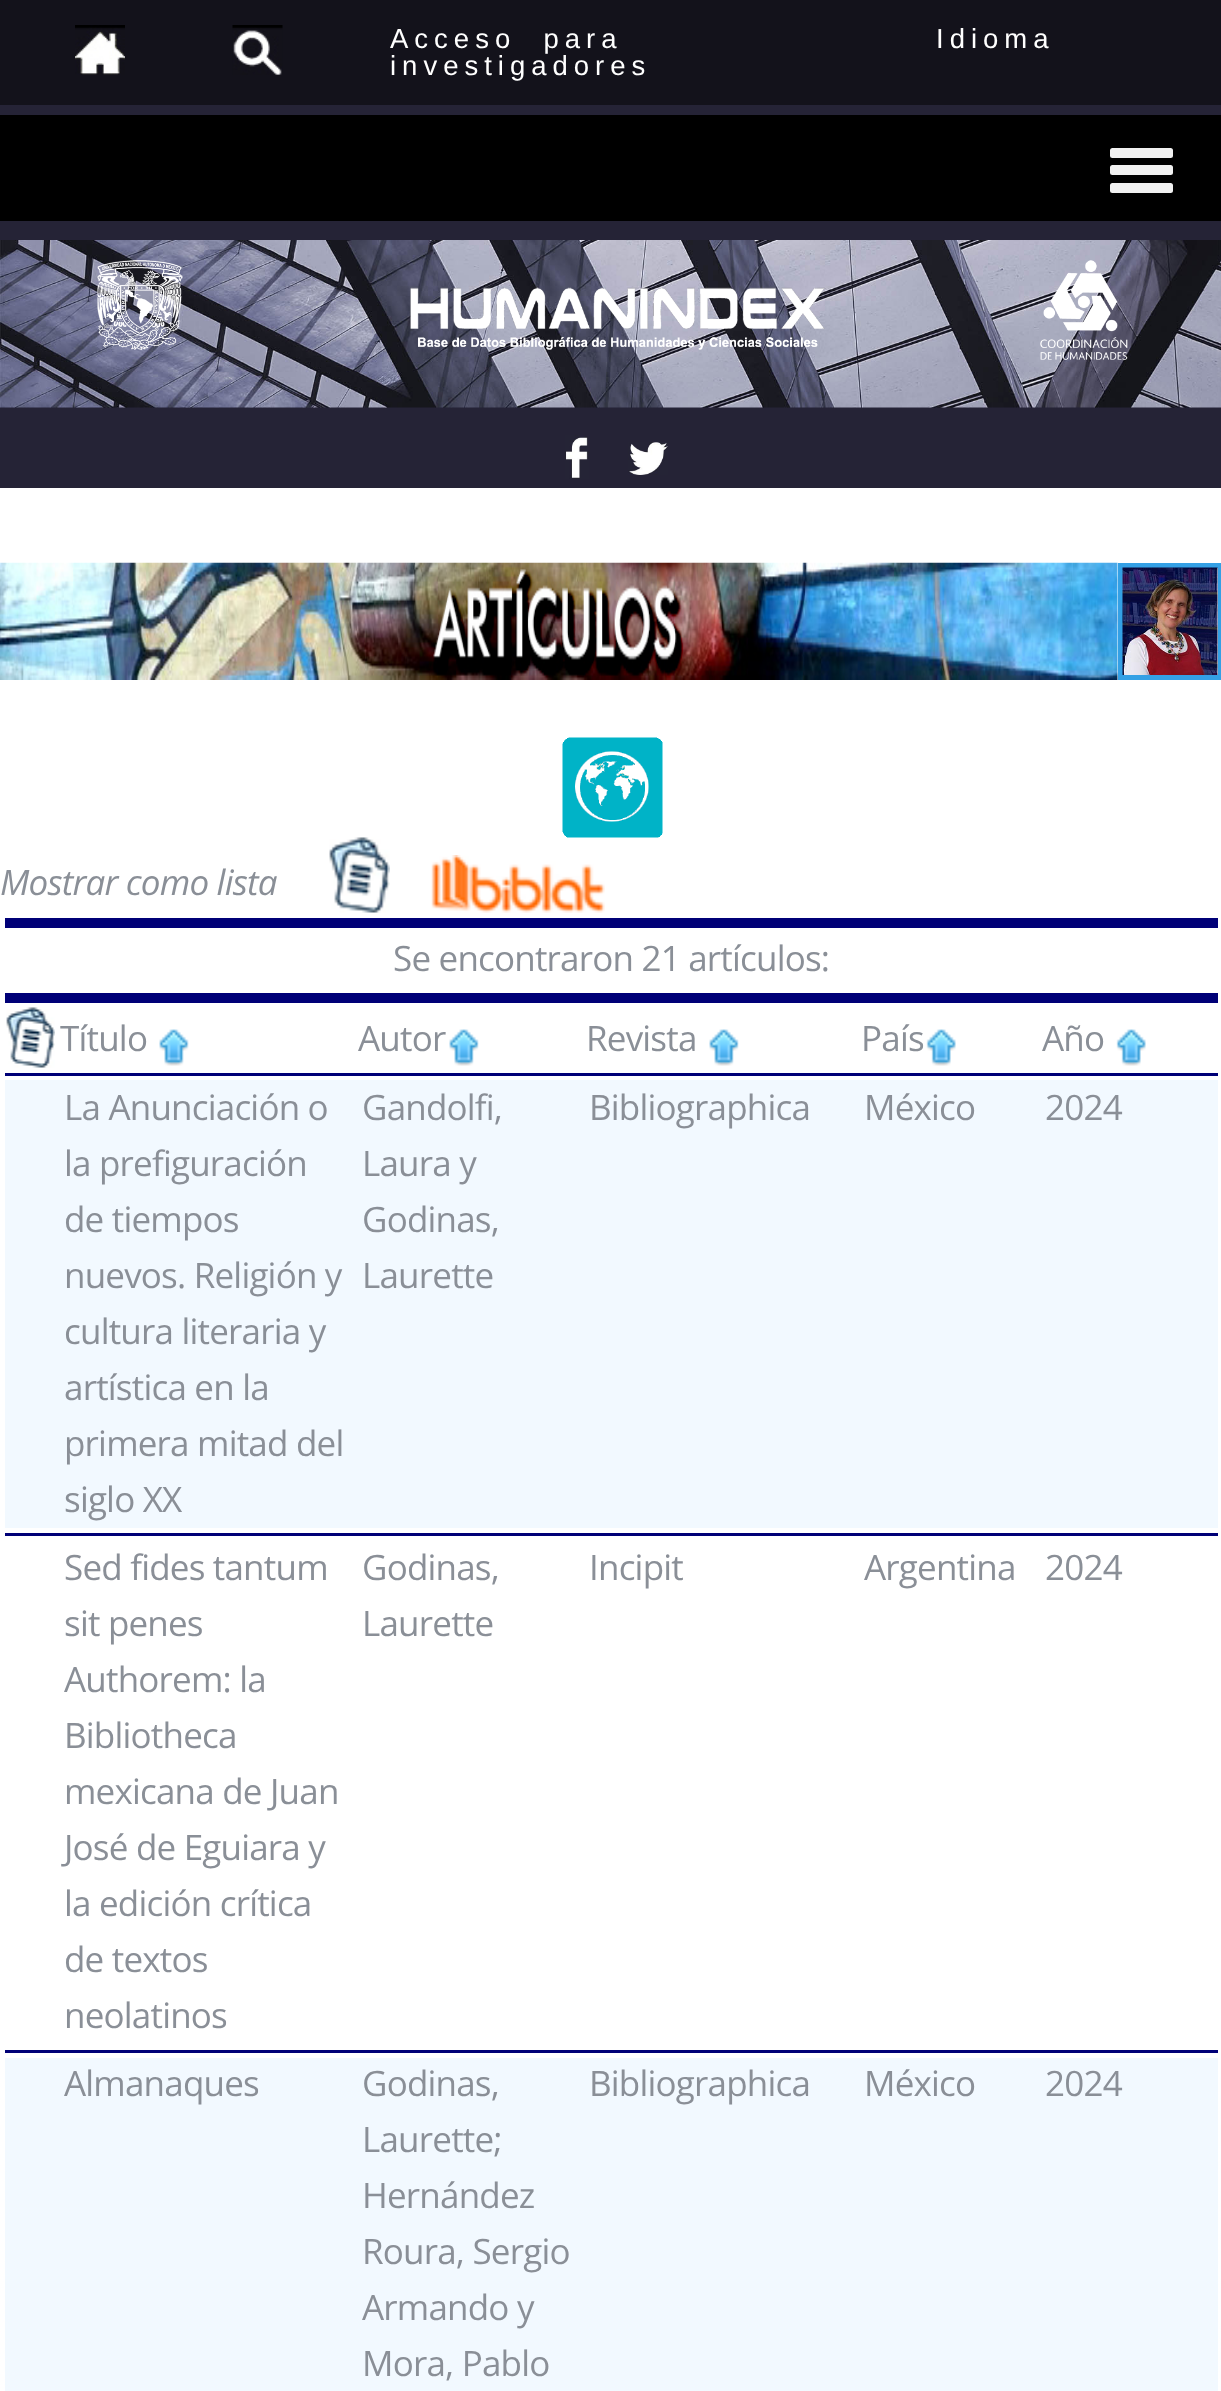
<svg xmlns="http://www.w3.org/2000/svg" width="1221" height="2391">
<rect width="100%" height="100%" fill="#252336"/>
<rect width="1221" height="105" fill="#13121b"/>
<image x="75" y="25" width="50" height="50" href="media/1.png"/>
<image x="232" y="25" width="51" height="50" href="media/2.png"/>
<text x="390" y="48" style="font-family:Liberation Sans;font-size:27.5px;letter-spacing:6px;fill:#fff" xml:space="preserve">Acceso  para</text>
<text x="390" y="75" style="font-family:Liberation Sans;font-size:27.5px;letter-spacing:6px;fill:#fff">investigadores</text>
<text x="936" y="48" style="font-family:Liberation Sans;font-size:27.5px;letter-spacing:6px;fill:#fff">Idioma</text>
<rect y="115" width="1221" height="106" fill="#000"/>
<rect x="1110" y="148" width="63" height="10" rx="2.5" fill="#f1f1f1"/>
<rect x="1110" y="165" width="63" height="10" rx="2.5" fill="#f1f1f1"/>
<rect x="1110" y="183" width="63" height="10" rx="2.5" fill="#f1f1f1"/>
<image x="0" y="240" width="1221" height="168" href="media/3.png"/>
<image x="97" y="260" width="86" height="90" href="media/4.png"/>
<image x="410" y="287" width="415" height="63" href="media/5.png"/>
<image x="1040" y="260" width="88" height="100" href="media/6.png"/>
<image x="565" y="435" width="24" height="44" href="media/7.png"/>
<image x="628" y="442" width="40" height="33" href="media/8.png"/>
<rect y="488" width="1221" height="1903" fill="#fff"/>
<image x="0" y="562" width="1118" height="118" href="media/9.png"/>
<rect x="1120.5" y="565.5" width="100" height="112" fill="none" stroke="#34a0e5" stroke-width="5"/>
<image x="1122" y="567" width="96" height="108" href="media/10.png"/>
<image x="562" y="737" width="101" height="101" href="media/11.png"/>
<text x="0" y="895" style="font-family:Open Sans;font-size:35px;font-style:italic;letter-spacing:-0.8px;fill:#8a8f97">Mostrar como lista</text>
<image x="329" y="837" width="61" height="76" href="media/12.png"/>
<image x="431" y="855" width="174" height="58" href="media/13.png"/>
<rect x="5" y="918" width="1213" height="10" fill="#007"/>
<text x="393" y="971" style="font-family:Open Sans;font-size:35px;letter-spacing:-0.8px;fill:#8a8f97">Se encontraron 21 artículos:</text>
<rect x="5" y="993" width="1213" height="10" fill="#007"/>
<image x="6" y="1007" width="49" height="61" href="media/14.png"/>
<text x="60" y="1051" style="font-family:Open Sans;font-size:35px;letter-spacing:-0.8px;fill:#8a8f97">Título</text>
<image x="159" y="1029" width="30" height="37" href="media/15.png"/>
<text x="358" y="1051" style="font-family:Open Sans;font-size:35px;letter-spacing:-0.8px;fill:#8a8f97">Autor</text>
<image x="449" y="1029" width="30" height="37" href="media/16.png"/>
<text x="586" y="1051" style="font-family:Open Sans;font-size:35px;letter-spacing:-0.8px;fill:#8a8f97">Revista</text>
<image x="709" y="1029" width="30" height="37" href="media/16.png"/>
<text x="861" y="1051" style="font-family:Open Sans;font-size:35px;letter-spacing:-0.8px;fill:#8a8f97">País</text>
<image x="926" y="1029" width="30" height="37" href="media/17.png"/>
<text x="1042" y="1051" style="font-family:Open Sans;font-size:35px;letter-spacing:-0.8px;fill:#8a8f97">Año</text>
<image x="1116" y="1029" width="30" height="37" href="media/17.png"/>
<rect x="5" y="1073" width="1213" height="3" fill="#007"/>
<rect x="5" y="1080" width="1213" height="448" fill="#f2f9ff"/>
<text x="64" y="1120" style="font-family:Open Sans;font-size:35px;letter-spacing:-0.8px;fill:#8a8f97">La Anunciación o</text>
<text x="64" y="1176" style="font-family:Open Sans;font-size:35px;letter-spacing:-0.8px;fill:#8a8f97">la prefiguración</text>
<text x="64" y="1232" style="font-family:Open Sans;font-size:35px;letter-spacing:-0.8px;fill:#8a8f97">de tiempos</text>
<text x="64" y="1288" style="font-family:Open Sans;font-size:35px;letter-spacing:-0.8px;fill:#8a8f97">nuevos. Religión y</text>
<text x="64" y="1344" style="font-family:Open Sans;font-size:35px;letter-spacing:-0.8px;fill:#8a8f97">cultura literaria y</text>
<text x="64" y="1400" style="font-family:Open Sans;font-size:35px;letter-spacing:-0.8px;fill:#8a8f97">artística en la</text>
<text x="64" y="1456" style="font-family:Open Sans;font-size:35px;letter-spacing:-0.8px;fill:#8a8f97">primera mitad del</text>
<text x="64" y="1512" style="font-family:Open Sans;font-size:35px;letter-spacing:-0.8px;fill:#8a8f97">siglo XX</text>
<text x="362" y="1120" style="font-family:Open Sans;font-size:35px;letter-spacing:-0.8px;fill:#8a8f97">Gandolfi,</text>
<text x="362" y="1176" style="font-family:Open Sans;font-size:35px;letter-spacing:-0.8px;fill:#8a8f97">Laura y</text>
<text x="362" y="1232" style="font-family:Open Sans;font-size:35px;letter-spacing:-0.8px;fill:#8a8f97">Godinas,</text>
<text x="362" y="1288" style="font-family:Open Sans;font-size:35px;letter-spacing:-0.8px;fill:#8a8f97">Laurette</text>
<text x="589" y="1120" style="font-family:Open Sans;font-size:35px;letter-spacing:-0.8px;fill:#8a8f97">Bibliographica</text>
<text x="864" y="1120" style="font-family:Open Sans;font-size:35px;letter-spacing:-0.8px;fill:#8a8f97">México</text>
<text x="1045" y="1120" style="font-family:Open Sans;font-size:35px;letter-spacing:-0.8px;fill:#8a8f97">2024</text>
<rect x="5" y="1533" width="1213" height="3" fill="#007"/>
<text x="64" y="1580" style="font-family:Open Sans;font-size:35px;letter-spacing:-0.8px;fill:#8a8f97">Sed fides tantum</text>
<text x="64" y="1636" style="font-family:Open Sans;font-size:35px;letter-spacing:-0.8px;fill:#8a8f97">sit penes</text>
<text x="64" y="1692" style="font-family:Open Sans;font-size:35px;letter-spacing:-0.8px;fill:#8a8f97">Authorem: la</text>
<text x="64" y="1748" style="font-family:Open Sans;font-size:35px;letter-spacing:-0.8px;fill:#8a8f97">Bibliotheca</text>
<text x="64" y="1804" style="font-family:Open Sans;font-size:35px;letter-spacing:-0.8px;fill:#8a8f97">mexicana de Juan</text>
<text x="64" y="1860" style="font-family:Open Sans;font-size:35px;letter-spacing:-0.8px;fill:#8a8f97">José de Eguiara y</text>
<text x="64" y="1916" style="font-family:Open Sans;font-size:35px;letter-spacing:-0.8px;fill:#8a8f97">la edición crítica</text>
<text x="64" y="1972" style="font-family:Open Sans;font-size:35px;letter-spacing:-0.8px;fill:#8a8f97">de textos</text>
<text x="64" y="2028" style="font-family:Open Sans;font-size:35px;letter-spacing:-0.8px;fill:#8a8f97">neolatinos</text>
<text x="362" y="1580" style="font-family:Open Sans;font-size:35px;letter-spacing:-0.8px;fill:#8a8f97">Godinas,</text>
<text x="362" y="1636" style="font-family:Open Sans;font-size:35px;letter-spacing:-0.8px;fill:#8a8f97">Laurette</text>
<text x="589" y="1580" style="font-family:Open Sans;font-size:35px;letter-spacing:-0.8px;fill:#8a8f97">Incipit</text>
<text x="864" y="1580" style="font-family:Open Sans;font-size:35px;letter-spacing:-0.8px;fill:#8a8f97">Argentina</text>
<text x="1045" y="1580" style="font-family:Open Sans;font-size:35px;letter-spacing:-0.8px;fill:#8a8f97">2024</text>
<rect x="5" y="2050" width="1213" height="3" fill="#007"/>
<rect x="5" y="2058" width="1213" height="333" fill="#f2f9ff"/>
<text x="64" y="2096" style="font-family:Open Sans;font-size:35px;letter-spacing:-0.8px;fill:#8a8f97">Almanaques</text>
<text x="362" y="2096" style="font-family:Open Sans;font-size:35px;letter-spacing:-0.8px;fill:#8a8f97">Godinas,</text>
<text x="362" y="2152" style="font-family:Open Sans;font-size:35px;letter-spacing:-0.8px;fill:#8a8f97">Laurette;</text>
<text x="362" y="2208" style="font-family:Open Sans;font-size:35px;letter-spacing:-0.8px;fill:#8a8f97">Hernández</text>
<text x="362" y="2264" style="font-family:Open Sans;font-size:35px;letter-spacing:-0.8px;fill:#8a8f97">Roura, Sergio</text>
<text x="362" y="2320" style="font-family:Open Sans;font-size:35px;letter-spacing:-0.8px;fill:#8a8f97">Armando y</text>
<text x="362" y="2376" style="font-family:Open Sans;font-size:35px;letter-spacing:-0.8px;fill:#8a8f97">Mora, Pablo</text>
<text x="589" y="2096" style="font-family:Open Sans;font-size:35px;letter-spacing:-0.8px;fill:#8a8f97">Bibliographica</text>
<text x="864" y="2096" style="font-family:Open Sans;font-size:35px;letter-spacing:-0.8px;fill:#8a8f97">México</text>
<text x="1045" y="2096" style="font-family:Open Sans;font-size:35px;letter-spacing:-0.8px;fill:#8a8f97">2024</text>
</svg>
